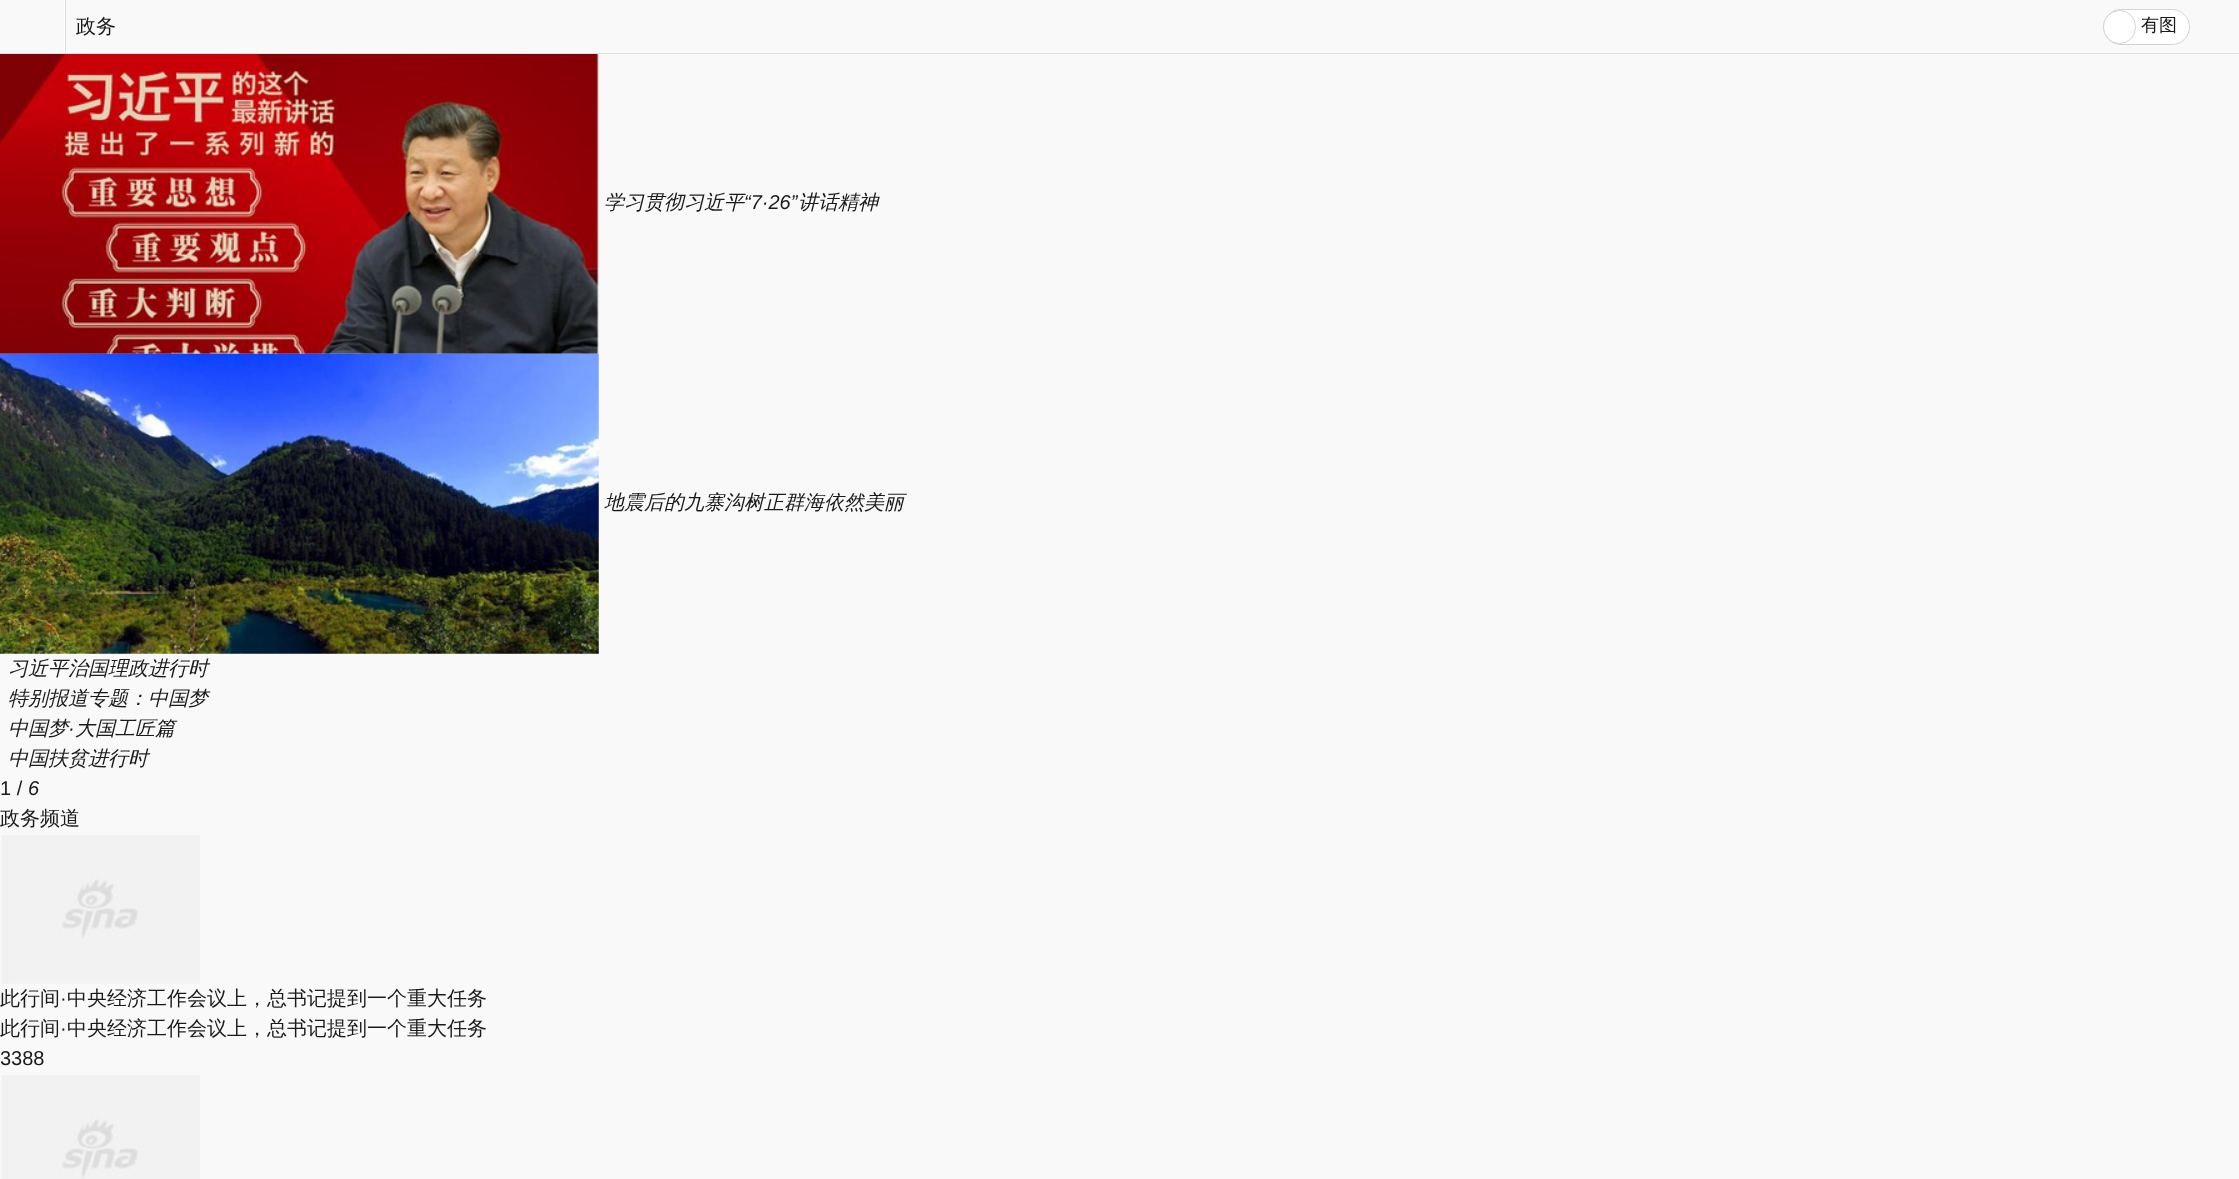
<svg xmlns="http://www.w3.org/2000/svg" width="2239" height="1179">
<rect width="100%" height="100%" fill="#f9f9f9"/>
<rect y="53" width="2239" height="1" fill="#dfdfdf"/>
<rect x="65" width="1" height="53" fill="#dfdfdf"/>
<rect x="64" width="1" height="53" fill="#fff"/>
<text x="76" y="33" style="font-family:WenQuanYi Zen Hei;font-size:20px;font-weight:500;fill:#1a1a1a">政务</text>
<rect x="2103.5" y="9.5" width="86" height="35" rx="17.5" fill="#fff" stroke="#d3d3d3"/>
<rect x="2103.5" y="10.5" width="32" height="33" rx="16" fill="#fff" stroke="#d3d3d3"/>
<text x="2141" y="31" style="font-family:WenQuanYi Zen Hei;font-size:18px;font-weight:500;fill:#1a1a1a">有图</text>
<image x="0" y="54" width="599" height="300" href="media/1.png"/>
<text x="604" y="209" style="font-family:WenQuanYi Zen Hei;font-size:20px;font-weight:500;font-style:italic;fill:#1a1a1a">学习贯彻习近平</text>
<text x="744" y="209" style="font-family:Liberation Sans;font-size:20px;font-style:italic;fill:#1a1a1a">“7·26”</text>
<text x="798" y="209" style="font-family:WenQuanYi Zen Hei;font-size:20px;font-weight:500;font-style:italic;fill:#1a1a1a">讲话精神</text>
<image x="0" y="353" width="599" height="301" href="media/2.png"/>
<text x="604" y="509" style="font-family:WenQuanYi Zen Hei;font-size:20px;font-weight:500;font-style:italic;fill:#1a1a1a">地震后的九寨沟树正群海依然美丽</text>
<text x="8" y="675" style="font-family:WenQuanYi Zen Hei;font-size:20px;font-weight:500;font-style:italic;fill:#1a1a1a">习近平治国理政进行时</text>
<text x="8" y="705" style="font-family:WenQuanYi Zen Hei;font-size:20px;font-weight:500;font-style:italic;fill:#1a1a1a">特别报道专题：中国梦</text>
<text x="8" y="735" style="font-family:WenQuanYi Zen Hei;font-size:20px;font-weight:500;font-style:italic;fill:#1a1a1a">中国梦</text>
<text x="68" y="735" style="font-family:Liberation Sans;font-size:20px;font-style:italic;fill:#1a1a1a">·</text>
<text x="75" y="735" style="font-family:WenQuanYi Zen Hei;font-size:20px;font-weight:500;font-style:italic;fill:#1a1a1a">大国工匠篇</text>
<text x="8" y="765" style="font-family:WenQuanYi Zen Hei;font-size:20px;font-weight:500;font-style:italic;fill:#1a1a1a">中国扶贫进行时</text>
<text x="0" y="795" style="font-family:Liberation Sans;font-size:20px;fill:#1a1a1a">1 /</text>
<text x="28" y="795" style="font-family:Liberation Sans;font-size:20px;font-style:italic;fill:#1a1a1a">6</text>
<text x="0" y="825" style="font-family:WenQuanYi Zen Hei;font-size:20px;font-weight:500;fill:#1a1a1a">政务频道</text>
<image x="1" y="835" width="199" height="149" href="media/3.png"/>
<text x="0" y="1005" style="font-family:WenQuanYi Zen Hei;font-size:20px;font-weight:500;fill:#1a1a1a">此行间</text>
<text x="60" y="1005" style="font-family:Liberation Sans;font-size:20px;fill:#1a1a1a">·</text>
<text x="67" y="1005" style="font-family:WenQuanYi Zen Hei;font-size:20px;font-weight:500;fill:#1a1a1a">中央经济工作会议上，总书记提到一个重大任务</text>
<text x="0" y="1035" style="font-family:WenQuanYi Zen Hei;font-size:20px;font-weight:500;fill:#1a1a1a">此行间</text>
<text x="60" y="1035" style="font-family:Liberation Sans;font-size:20px;fill:#1a1a1a">·</text>
<text x="67" y="1035" style="font-family:WenQuanYi Zen Hei;font-size:20px;font-weight:500;fill:#1a1a1a">中央经济工作会议上，总书记提到一个重大任务</text>
<text x="0" y="1065" style="font-family:Liberation Sans;font-size:20px;fill:#1a1a1a">3388</text>
<image x="1" y="1075" width="199" height="104" href="media/4.png"/>
</svg>
